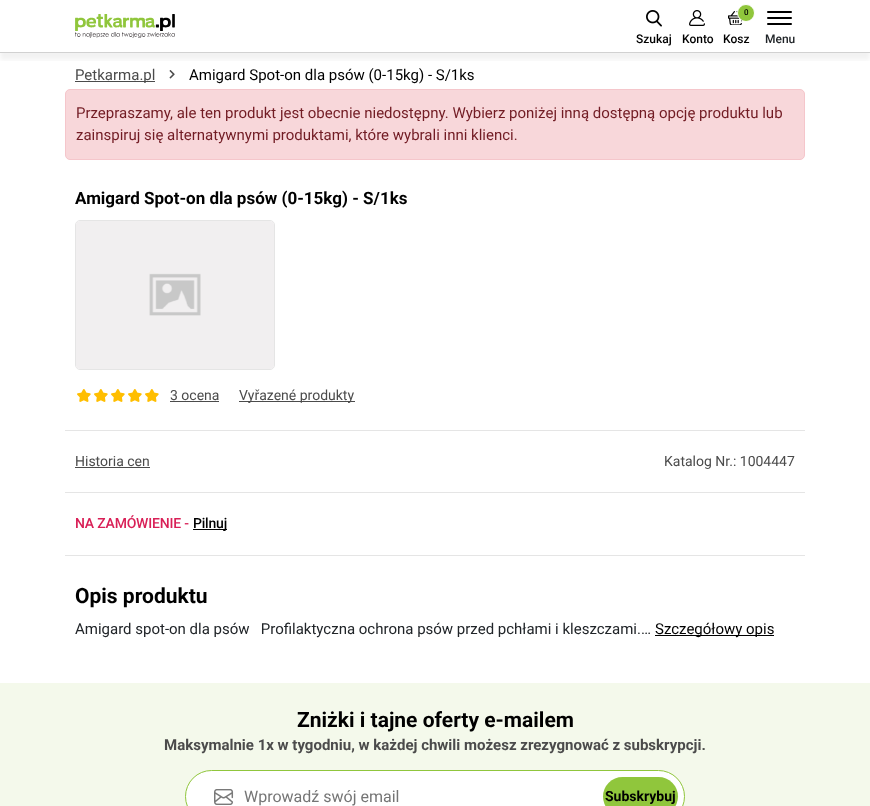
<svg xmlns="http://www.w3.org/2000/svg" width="870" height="806">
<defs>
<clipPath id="clip1"><rect x="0" y="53" width="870" height="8"/></clipPath>
</defs>
<rect width="100%" height="100%" fill="#fff"/>
<g clip-path="url(#clip1)">
<rect y="7" width="870" height="53" fill="#0000000d" filter="blur(2.5px)"/>
</g>
<rect y="52" width="870" height="1" fill="#d1d1d1"/>
<image x="75" y="14" width="100" height="24" href="media/1.png"/>
<image x="646" y="10" width="16" height="17" href="media/2.png"/>
<text x="636" y="43" style="font-family:Roboto;font-size:12px;font-weight:500;fill:#000">Szukaj</text>
<image x="689" y="10" width="16" height="16" href="media/3.png"/>
<text x="682" y="43" style="font-family:Roboto;font-size:12px;font-weight:500;fill:#000">Konto</text>
<image x="728" y="11" width="14" height="14" href="media/4.png"/>
<circle cx="746" cy="13" r="8.5" fill="#90c63c" stroke="#fff"/>
<text x="744" y="15" style="font-family:Roboto;font-size:8px;font-weight:500;fill:#000">0</text>
<text x="723" y="43" style="font-family:Roboto;font-size:12px;font-weight:500;fill:#000">Kosz</text>
<rect x="767" y="23" width="25" height="2" rx="1" fill="#000"/>
<rect x="767" y="11" width="25" height="2" rx="1" fill="#000"/>
<rect x="767" y="17" width="25" height="2" rx="1" fill="#000"/>
<text x="765" y="43" style="font-family:Roboto;font-size:12px;font-weight:500;fill:#212529">Menu</text>
<rect x="75" y="81" width="80" height="1" fill="#4b4b4b"/>
<text x="75" y="80" style="font-family:Roboto;font-size:15px;fill:#4b4b4b">Petkarma.pl</text>
<image x="169" y="70" width="6" height="9" href="media/5.png"/>
<text x="189" y="80" style="font-family:Roboto;font-size:15px;fill:#000">Amigard Spot-on dla psów (0-15kg) - S/1ks</text>
<rect x="65.5" y="89.5" width="739" height="70" rx="4.5" fill="#f8d7da" stroke="#f5c6cb"/>
<text x="76" y="118" style="font-family:Roboto;font-size:15px;fill:#721c24">Przepraszamy, ale ten produkt jest obecnie niedostępny. Wybierz poniżej inną dostępną opcję produktu lub</text>
<text x="76" y="140" style="font-family:Roboto;font-size:15px;fill:#721c24">zainspiruj się alternatywnymi produktami, które wybrali inni klienci.</text>
<text x="75" y="204" style="font-family:Roboto;font-size:17px;font-weight:bold;fill:#000">Amigard Spot-on dla psów (0-15kg) - S/1ks</text>
<rect x="75.5" y="220.5" width="199" height="149" rx="4.5" fill="none" stroke="#e5e5e5"/>
<image x="76" y="221" width="198" height="148" href="media/6.png"/>
<image x="77" y="389" width="14" height="13" href="media/7.png"/>
<image x="94" y="389" width="14" height="13" href="media/7.png"/>
<image x="111" y="389" width="14" height="13" href="media/7.png"/>
<image x="128" y="389" width="14" height="13" href="media/7.png"/>
<image x="145" y="389" width="14" height="13" href="media/7.png"/>
<text x="170" y="400" style="font-family:Roboto;font-size:14px;fill:#4b4b4b">3 ocena</text>
<rect x="170" y="401" width="49" height="1" fill="#4b4b4b"/>
<rect x="239" y="401" width="116" height="1" fill="#4b4b4b"/>
<text x="239" y="400" style="font-family:Roboto;font-size:14px;fill:#4b4b4b">Vyřazené produkty</text>
<rect x="65" y="430" width="740" height="1" fill="#e5e5e5"/>
<text x="75" y="466" style="font-family:Roboto;font-size:14px;fill:#4b4b4b">Historia cen</text>
<rect x="75" y="467" width="75" height="1" fill="#4b4b4b"/>
<text x="664" y="466" style="font-family:Roboto;font-size:14px;fill:#4b4b4b">Katalog Nr.: 1004447</text>
<rect x="65" y="492" width="740" height="1" fill="#e5e5e5"/>
<rect x="65" y="555" width="740" height="1" fill="#e5e5e5"/>
<text x="75" y="528" style="font-family:Roboto;font-size:14px;font-weight:500;letter-spacing:-0.2px;fill:#d92057">NA ZAMÓWIENIE -</text>
<rect x="193" y="529" width="34" height="1" fill="#000"/>
<text x="193" y="528" style="font-family:Roboto;font-size:14px;font-weight:500;letter-spacing:-0.2px;fill:#000">Pilnuj</text>
<text x="75" y="603" style="font-family:Roboto;font-size:21px;font-weight:bold;fill:#000">Opis produktu</text>
<text x="75" y="634" style="font-family:Roboto;font-size:15px;fill:#212529" xml:space="preserve">Amigard spot-on dla psów   Profilaktyczna ochrona psów przed pchłami i kleszczami.…</text>
<rect x="655" y="635" width="119" height="1" fill="#000"/>
<text x="655" y="634" style="font-family:Roboto;font-size:15px;fill:#000">Szczegółowy opis</text>
<rect y="683" width="870" height="123" fill="#f4f9eb"/>
<text x="297" y="727" style="font-family:Roboto;font-size:21px;font-weight:bold;fill:#000">Zniżki i tajne oferty e-mailem</text>
<text x="164" y="750" style="font-family:Roboto;font-size:15px;font-weight:bold;fill:#4b4b4b">Maksymalnie 1x w tygodniu, w każdej chwili możesz zrezygnować z subskrypcji.</text>
<rect x="185.5" y="770.5" width="499" height="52" rx="26" fill="#fff" stroke="#90c63c"/>
<image x="214" y="789" width="20" height="16" href="media/8.png"/>
<text x="244" y="802" style="font-family:Roboto;font-size:16px;fill:#757575">Wprowadź swój email</text>
<rect x="603" y="777" width="75" height="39" rx="19.5" fill="#90c63c"/>
<text x="605" y="801" style="font-family:Roboto;font-size:14px;font-weight:bold;fill:#000">Subskrybuj</text>
</svg>
